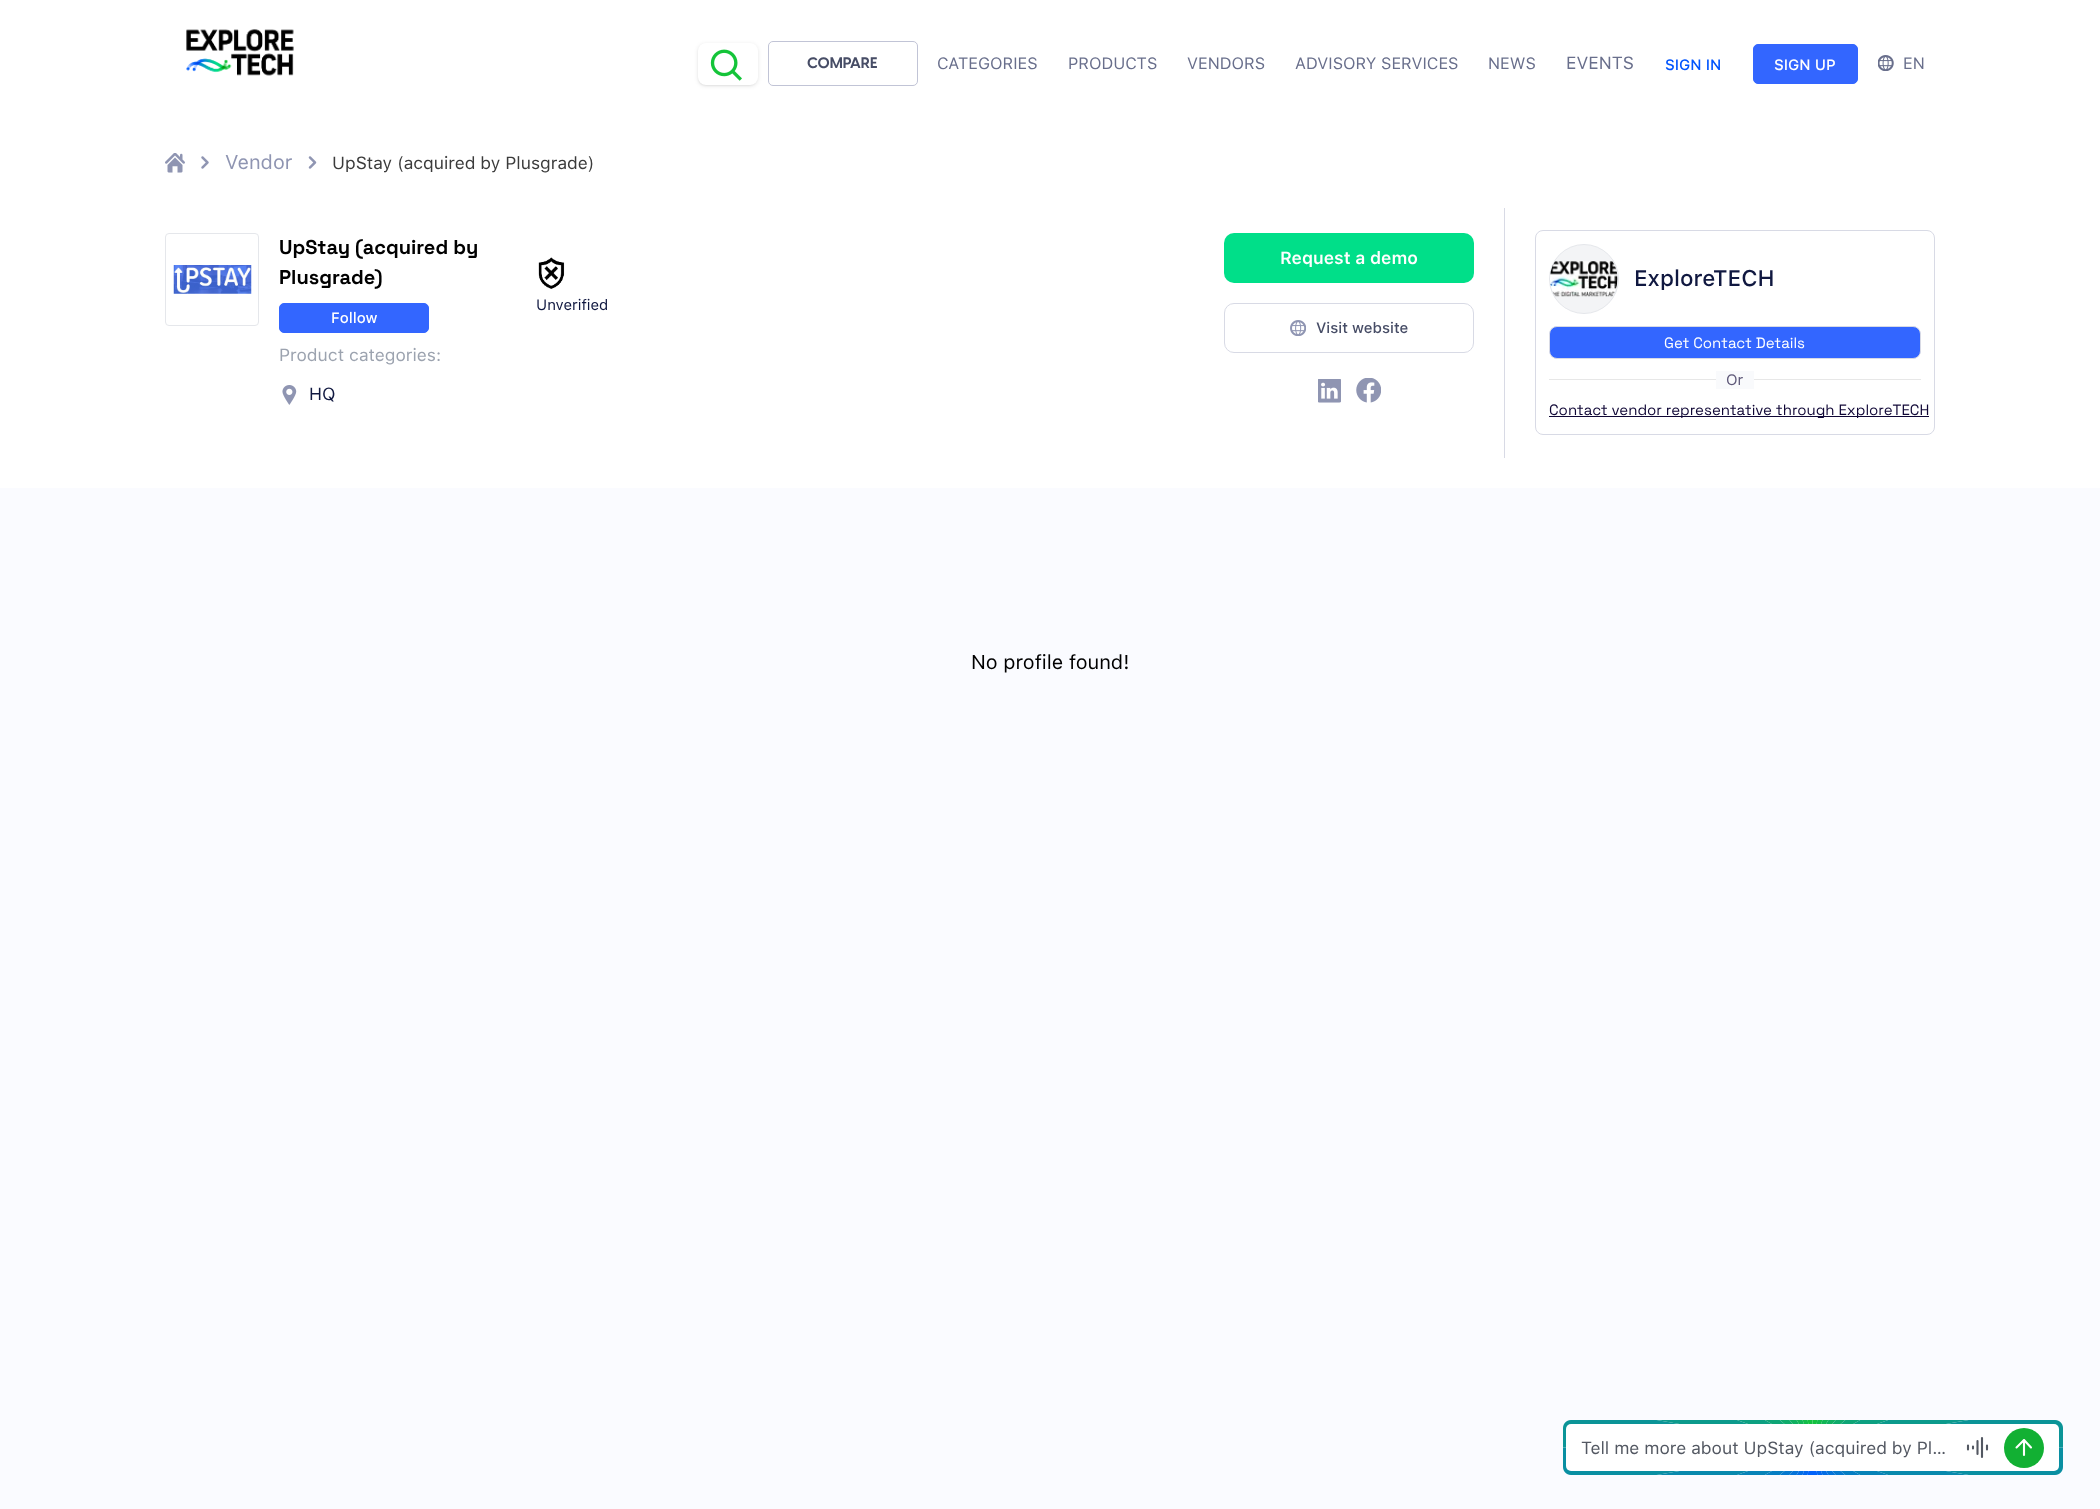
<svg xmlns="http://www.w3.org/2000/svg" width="2100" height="1509">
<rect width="100%" height="100%" fill="#fff"/>
<image x="186" y="29" width="108" height="47" href="media/1.png"/>
<rect x="699" y="45" width="57" height="40" rx="6" fill="#0000001a" filter="blur(1px)"/>
<rect x="698" y="44" width="60" height="42" rx="8" fill="#0000001a" filter="blur(2px)"/>
<rect x="698" y="43" width="60" height="42" rx="8" fill="#fff"/>
<image x="710" y="49" width="32" height="32" href="media/2.png"/>
<rect x="768.5" y="41.5" width="149" height="44" rx="4.5" fill="none" stroke="#c1c4d6"/>
<text x="807" y="68" style="font-family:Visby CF;font-size:15px;font-weight:bold;fill:#474d66">COMPARE</text>
<text x="937" y="69" style="font-family:SF Pro Text;font-size:16.25px;fill:#696f8c">CATEGORIES</text>
<text x="1068" y="69" style="font-family:SF Pro Text;font-size:16.25px;fill:#696f8c">PRODUCTS</text>
<text x="1187" y="69" style="font-family:SF Pro Text;font-size:16.25px;fill:#696f8c">VENDORS</text>
<text x="1295" y="69" style="font-family:SF Pro Text;font-size:16.25px;fill:#696f8c">ADVISORY SERVICES</text>
<text x="1488" y="69" style="font-family:SF Pro Text;font-size:16.25px;fill:#696f8c">NEWS</text>
<text x="1566" y="69" style="font-family:SF Pro Text;font-size:17.5px;fill:#696f8c">EVENTS</text>
<text x="1665" y="70" style="font-family:SF Pro Text;font-size:15px;font-weight:500;fill:#0055fe">SIGN IN</text>
<rect x="1753.5" y="44.5" width="104" height="39" rx="4.5" fill="#36f" stroke="#36f"/>
<text x="1774" y="70" style="font-family:SF Pro Text;font-size:15px;font-weight:500;fill:#fff">SIGN UP</text>
<image x="1878" y="55" width="16" height="16" href="media/3.png"/>
<text x="1903" y="69" style="font-family:SF Pro Text;font-size:16.25px;fill:#696f8c">EN</text>
<image x="165" y="153" width="20" height="20" href="media/4.png"/>
<image x="201" y="156" width="8" height="13" href="media/5.png"/>
<text x="225" y="169" style="font-family:SF Pro Text;font-size:20px;fill:#8f95b2">Vendor</text>
<image x="308" y="156" width="9" height="13" href="media/6.png"/>
<text x="332" y="169" style="font-family:SF Pro Text;font-size:17.5px;fill:#3b3b3b">UpStay (acquired by Plusgrade)</text>
<rect x="165.5" y="233.5" width="93" height="92" rx="3.5" fill="none" stroke="#e5e7eb"/>
<image x="173" y="265" width="79" height="29" href="media/7.png"/>
<text x="279" y="254" style="font-family:Space Grotesk;font-size:20px;font-weight:bold;fill:#000">UpStay (acquired by</text>
<text x="279" y="284" style="font-family:Space Grotesk;font-size:20px;font-weight:bold;fill:#000">Plusgrade)</text>
<rect x="279.5" y="303.5" width="149" height="29" rx="4.5" fill="#36f" stroke="#36f"/>
<text x="331" y="323" style="font-family:SF Pro Text;font-size:15px;font-weight:500;fill:#fff">Follow</text>
<image x="538" y="257" width="27" height="32" href="media/8.png"/>
<text x="536" y="310" style="font-family:SF Pro Text;font-size:15px;fill:#101840">Unverified</text>
<text x="279" y="361" style="font-family:SF Pro Text;font-size:17.5px;fill:#9ca3af">Product categories:</text>
<image x="282" y="385" width="15" height="20" href="media/9.png"/>
<text x="309" y="400" style="font-family:SF Pro Text;font-size:17.5px;fill:#101840">HQ</text>
<rect x="1504" y="208" width="1" height="250" fill="#d8dae5"/>
<rect x="1224" y="233" width="250" height="50" rx="10" fill="#00df89"/>
<text x="1280" y="264" style="font-family:SF Pro Text;font-size:17.5px;font-weight:600;fill:#fff">Request a demo</text>
<rect x="1224.5" y="303.5" width="249" height="49" rx="9.5" fill="none" stroke="#d8dae5"/>
<image x="1290" y="320" width="16" height="16" href="media/10.png"/>
<text x="1316" y="333" style="font-family:SF Pro Text;font-size:15px;font-weight:500;fill:#474d66">Visit website</text>
<image x="1318" y="379" width="23" height="24" href="media/11.png"/>
<image x="1356" y="378" width="25" height="25" href="media/12.png"/>
<rect x="1535.5" y="230.5" width="399" height="204" rx="7.5" fill="none" stroke="#d8dae5"/>
<circle cx="1584" cy="279" r="34.5" fill="#f3f4f6" stroke="#e5e7eb"/>
<image x="1550" y="261" width="68" height="36" href="media/13.png"/>
<text x="1634" y="286" style="font-family:SF Pro Text;font-size:22.5px;font-weight:500;fill:#101840">ExploreTECH</text>
<rect x="1549.5" y="326.5" width="371" height="32" rx="7.5" fill="#36f" stroke="#d8dae5"/>
<text x="1664" y="348" style="font-family:Space Grotesk;font-size:15px;fill:#fff">Get Contact Details</text>
<rect x="1549" y="379" width="372" height="1" fill="#e7e7e7"/>
<rect x="1716" y="371" width="38" height="18" fill="#f9fafc"/>
<text x="1726" y="385" style="font-family:SF Pro Text;font-size:15px;fill:#5e5878">Or</text>
<rect x="1549" y="416" width="380" height="1" fill="#0f0635"/>
<text x="1549" y="415" style="font-family:Space Grotesk;font-size:15px;fill:#0f0635">Contact vendor representative through ExploreTECH</text>
<rect y="488" width="2100" height="1021" fill="#fafbff"/>
<text x="971" y="669" style="font-family:SF Pro Text;font-size:20px;fill:#000">No profile found!</text>
<image x="1563" y="1420" width="500" height="55" href="media/14.png"/>
<rect x="1566" y="1424" width="493" height="47" rx="5" fill="#fff"/>
<text x="1581" y="1454" style="font-family:SF Pro Text;font-size:17.5px;fill:#535862">Tell me more about UpStay (acquired by Pl…</text>
<path d="M1968 1445.5v4m5-3v2m4.5-7.5v13m4.5-16v19m5-11.5v4" fill="none" stroke="#535862" stroke-width="2.1" stroke-linecap="round" stroke-linejoin="round"/>
<circle cx="2024" cy="1448" r="20" fill="#12b033"/>
<path d="M2024 1455v-15m0 0l-7.5 7.5m7.5-7.5l7 7.5" fill="none" stroke="#fff" stroke-width="2.1" stroke-linecap="round" stroke-linejoin="round"/>
</svg>
